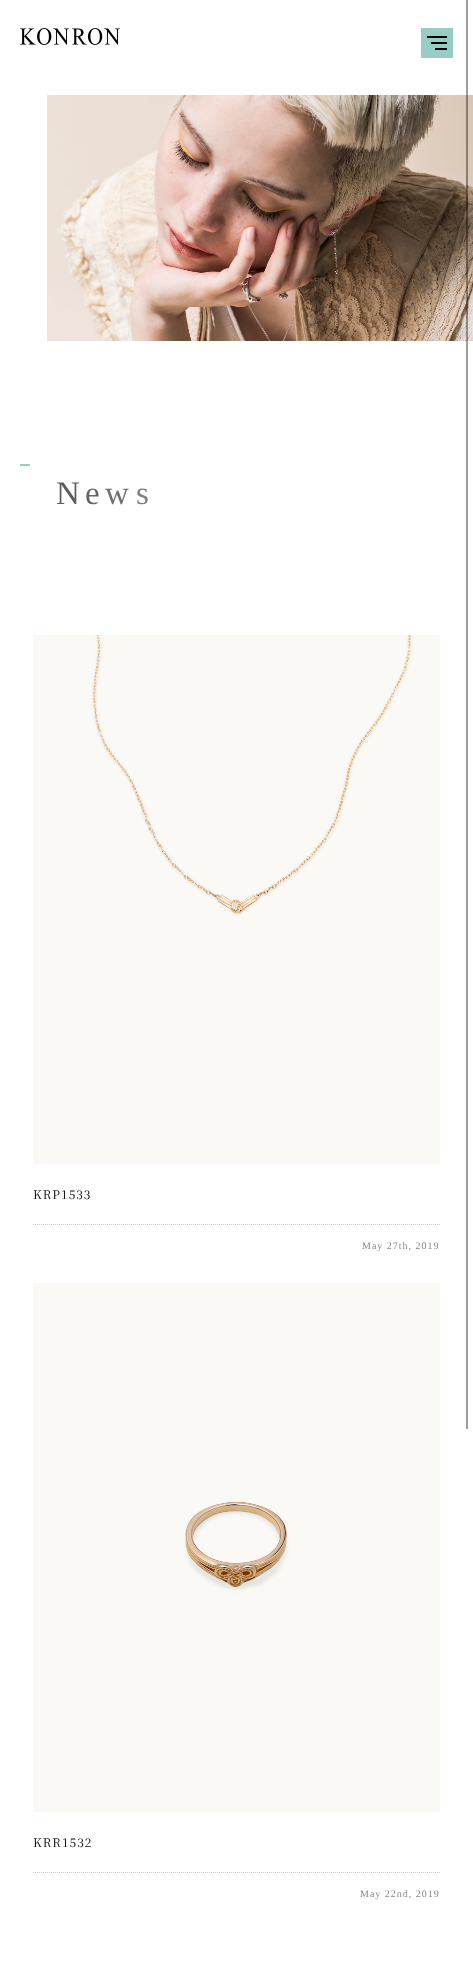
<svg xmlns="http://www.w3.org/2000/svg" width="473" height="1972">
<style>*{font-kerning:none!important;font-variant-ligatures:none!important}</style>
<rect width="100%" height="100%" fill="#fff"/>
<image x="20" y="28" width="100" height="17" href="media/1.png"/>
<rect x="421" y="28" width="32" height="30" fill="#98cdc3"/>
<rect x="427" y="36" width="20" height="2" fill="#000"/>
<rect x="431" y="42" width="16" height="2" fill="#000"/>
<rect x="435" y="48" width="12" height="2" fill="#000"/>
<image x="47" y="95" width="426" height="246" href="media/2.png"/>
<rect x="20" y="464" width="10" height="2" fill="#98cdc3"/>
<text x="56" y="504" style="font-family:Liberation Serif;font-size:33px;letter-spacing:1px;fill:#5b5b5b">N</text>
<text x="85" y="504" style="font-family:Liberation Serif;font-size:33px;letter-spacing:1px;fill:#656565">e</text>
<text x="105" y="504" style="font-family:Liberation Serif;font-size:33px;letter-spacing:1px;fill:#717171">w</text>
<text x="136" y="504" style="font-family:Liberation Serif;font-size:33px;letter-spacing:1px;fill:#7f7f7f">s</text>
<image x="33" y="635" width="407" height="529" href="media/3.png"/>
<path d="M33 1224.5h407" fill="none" stroke="#ccc" stroke-dasharray="1 1"/>
<text x="33" y="1199" style="font-family:Noto Serif JP;font-size:12px;letter-spacing:1px;fill:#000">KRP1533</text>
<text x="362" y="1249" style="font-family:Liberation Serif;font-size:10px;letter-spacing:1px;fill:#888">May 27th, 2019</text>
<image x="33" y="1283" width="407" height="529" href="media/4.png"/>
<path d="M33 1872.5h407" fill="none" stroke="#ccc" stroke-dasharray="1 1"/>
<text x="33" y="1847" style="font-family:Noto Serif JP;font-size:12px;letter-spacing:1px;fill:#000">KRR1532</text>
<text x="360" y="1897" style="font-family:Liberation Serif;font-size:10px;letter-spacing:1px;fill:#888">May 22nd, 2019</text>
<rect x="466" width="2" height="1429" fill="#00000061"/>
</svg>
